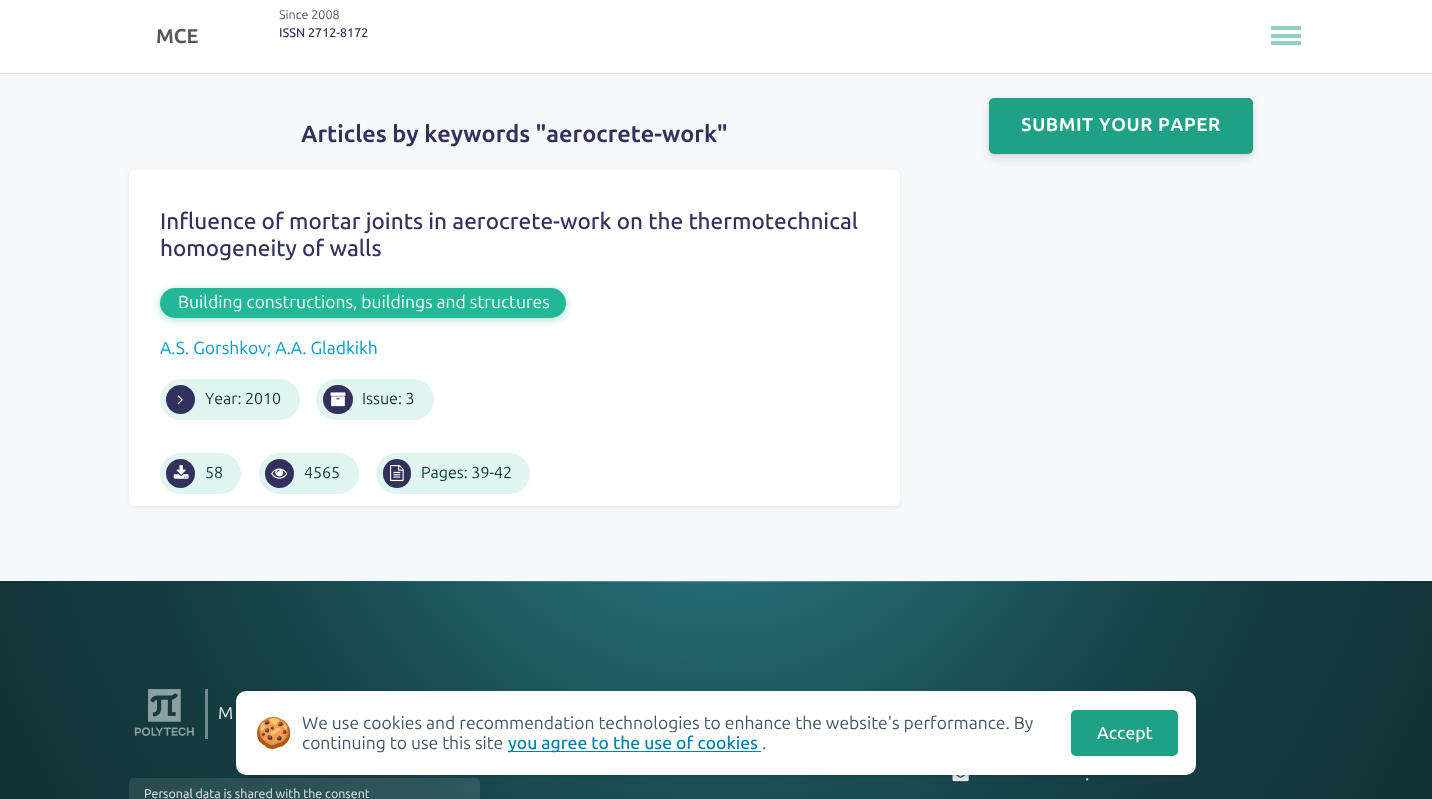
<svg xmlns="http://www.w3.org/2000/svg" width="1432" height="799">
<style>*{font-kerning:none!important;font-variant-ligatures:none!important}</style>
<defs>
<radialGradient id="g1" gradientUnits="userSpaceOnUse" cx="716" cy="394" r="910"><stop offset="0.1" stop-color="#28777e"/><stop offset="0.55" stop-color="#164246"/><stop offset="1" stop-color="#0f2c2e"/></radialGradient>
<linearGradient id="g2" gradientUnits="userSpaceOnUse" x1="8" y1="505" x2="1424" y2="659"><stop offset="0.25" stop-color="#c4faff" stop-opacity="0"/><stop offset="0.5" stop-color="#c4faff" stop-opacity="0.35"/><stop offset="0.75" stop-color="#c4faff" stop-opacity="0"/></linearGradient>
</defs>
<rect width="100%" height="100%" fill="#fff"/>
<rect y="73" width="1432" height="508" fill="#f7f8f9"/>
<rect y="1" width="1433" height="73" fill="#0000001a" filter="blur(0.5px)"/>
<rect width="1432" height="73" fill="#fff"/>
<text x="156" y="43" style="font-family:Ubuntu;font-size:20px;font-weight:bold;fill:#585858">MCE</text>
<text x="279" y="19" style="font-family:Ubuntu;font-size:12.5px;fill:#425766">Since 2008</text>
<text x="279" y="37" style="font-family:Ubuntu;font-size:12.5px;font-weight:500;fill:#32325d">ISSN 2712-8172</text>
<rect x="1271" y="34" width="30" height="4" fill="#8fd0c2"/>
<rect x="1271" y="26" width="30" height="4" fill="#8fd0c2"/>
<rect x="1271" y="41" width="30" height="4" fill="#8fd0c2"/>
<text x="301" y="142" style="font-family:Ubuntu;font-size:23.4px;font-weight:bold;fill:#32325d">Articles by keywords "aerocrete-work"</text>
<rect x="129" y="171" width="771" height="337" rx="6" fill="#e6ebf1" filter="blur(2px)"/>
<rect x="129" y="170" width="771" height="336" rx="6" fill="#fff"/>
<text x="160" y="229" style="font-family:Ubuntu;font-size:22.5px;font-weight:500;fill:#32325d">Influence of mortar joints in aerocrete-work on the thermotechnical</text>
<text x="160" y="256" style="font-family:Ubuntu;font-size:22.5px;font-weight:500;fill:#32325d">homogeneity of walls</text>
<rect x="160" y="290" width="406" height="30" rx="15" fill="#22b79666" filter="blur(4px)"/>
<rect x="160" y="288" width="406" height="30" rx="15" fill="#22b796"/>
<text x="178" y="308" style="font-family:Ubuntu;font-size:17.5px;fill:#fff">Building constructions, buildings and structures</text>
<text x="160" y="354" style="font-family:Ubuntu;font-size:17.5px;fill:#09c">A.S. Gorshkov; A.A. Gladkikh</text>
<rect x="160" y="379" width="140" height="41" rx="20.5" fill="#e0f5f0"/>
<circle cx="180.5" cy="399.5" r="14.5" fill="#32315e"/>
<image x="177" y="395" width="6" height="10" href="media/1.png"/>
<text x="205" y="404" style="font-family:Ubuntu;font-size:16px;fill:#0a362c">Year: 2010</text>
<rect x="316" y="379" width="118" height="41" rx="20.5" fill="#e0f5f0"/>
<rect x="323" y="385" width="30" height="29" rx="14.5" fill="#32315e"/>
<image x="330" y="392" width="16" height="15" href="media/2.png"/>
<text x="362" y="404" style="font-family:Ubuntu;font-size:16px;fill:#0a362c">Issue: 3</text>
<rect x="160" y="453" width="81" height="41" rx="20.5" fill="#e0f5f0"/>
<circle cx="180.5" cy="473.5" r="14.5" fill="#32315e"/>
<image x="173" y="465" width="16" height="14" href="media/3.png"/>
<text x="205" y="478" style="font-family:Ubuntu;font-size:16px;fill:#0a362c">58</text>
<rect x="259" y="453" width="100" height="41" rx="20.5" fill="#e0f5f0"/>
<circle cx="279.5" cy="473.5" r="14.5" fill="#32315e"/>
<image x="271" y="468" width="17" height="11" href="media/4.png"/>
<text x="304" y="478" style="font-family:Ubuntu;font-size:16px;fill:#0a362c">4565</text>
<rect x="376" y="453" width="154" height="41" rx="20.5" fill="#e0f5f0"/>
<rect x="383" y="459" width="28" height="29" rx="14" fill="#32315e"/>
<image x="390" y="465" width="14" height="17" href="media/5.png"/>
<text x="421" y="478" style="font-family:Ubuntu;font-size:16px;fill:#0a362c">Pages: 39-42</text>
<rect x="989" y="99" width="264" height="56" rx="5" fill="#00000014" filter="blur(2px)"/>
<rect x="989" y="103" width="264" height="56" rx="5" fill="#32325d1c" filter="blur(4px)"/>
<rect x="989" y="98" width="264" height="56" rx="5" fill="#1ea184"/>
<text x="1021" y="131" style="font-family:Ubuntu;font-size:18.75px;font-weight:bold;letter-spacing:0.5px;fill:#fff">SUBMIT YOUR PAPER</text>
<rect y="581" width="1432" height="218" fill="url(#g1)"/>
<rect x="380" y="581" width="672" height="1" fill="url(#g2)"/>
<image x="134" y="689" width="60" height="47" href="media/6.png"/>
<rect x="205" y="689" width="3" height="50" fill="#728a8c"/>
<text x="218" y="719" style="font-family:Ubuntu;font-size:17.5px;fill:#e8eced">M</text>
<rect x="129" y="778" width="351" height="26" rx="5" fill="#ffffff1a"/>
<text x="144" y="798" style="font-family:Ubuntu;font-size:12.5px;fill:#e8eced">Personal data is shared with the consent</text>
<image x="952" y="775" width="17" height="7" href="media/7.png"/>
<text x="1085" y="780" style="font-family:Ubuntu;font-size:17.5px;fill:#e8eced">.</text>
<rect x="236" y="693" width="960" height="83" rx="10" fill="#00000012" filter="blur(1px)"/>
<rect x="236" y="694" width="960" height="84" rx="10" fill="#0a254017" filter="blur(3px)"/>
<rect x="236" y="691" width="960" height="84" rx="10" fill="#fff"/>
<text x="255" y="743" style="font-family:Noto Color Emoji;font-size:30px;fill:#425766">🍪</text>
<text x="302" y="729" style="font-family:Ubuntu;font-size:17.5px;fill:#425766">We use cookies and recommendation technologies to enhance the website's performance. By</text>
<text x="302" y="749" style="font-family:Ubuntu;font-size:17.5px;fill:#425766">continuing to use this site</text>
<rect x="508" y="751" width="253" height="1" fill="#0080a7"/>
<text x="508" y="749" style="font-family:Ubuntu;font-size:17.5px;font-weight:500;fill:#0080a7">you agree to the use of cookies</text>
<text x="762" y="749" style="font-family:Ubuntu;font-size:17.5px;fill:#425766">.</text>
<rect x="1071" y="710" width="107" height="46" rx="5" fill="#1ea184"/>
<text x="1097" y="739" style="font-family:Ubuntu;font-size:17.5px;font-weight:500;fill:#fff">Accept</text>
</svg>
